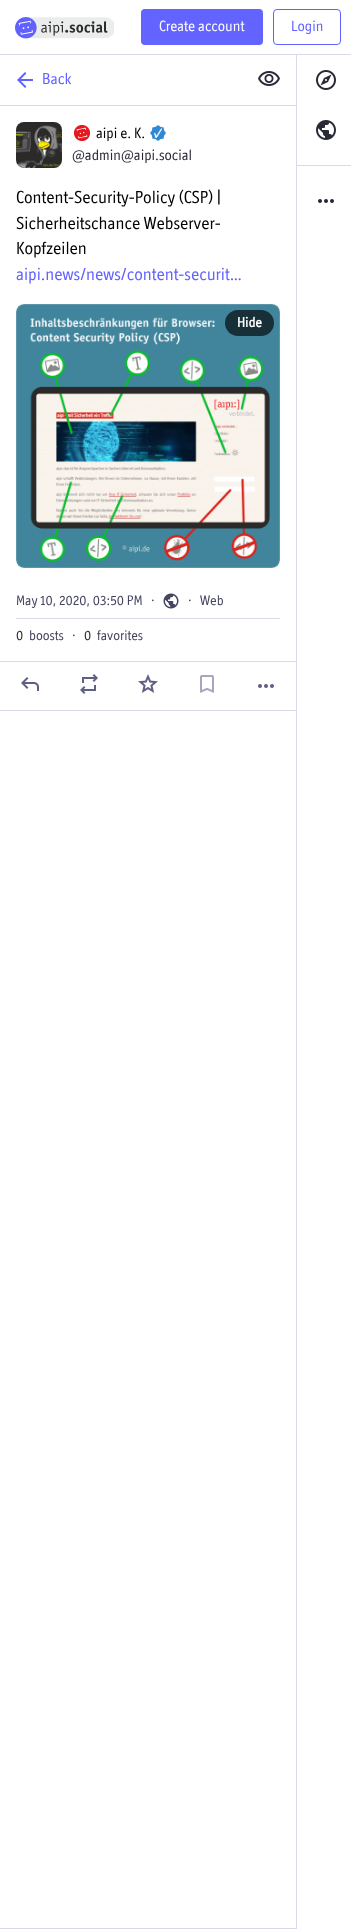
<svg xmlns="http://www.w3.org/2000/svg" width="351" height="1929">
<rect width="100%" height="100%" fill="#fff"/>
<rect y="54" width="351" height="1" fill="#d9d9e8"/>
<image x="15" y="17" width="99" height="22" href="media/1.png"/>
<rect x="141" y="9" width="122" height="36" rx="4" fill="#6364ff"/>
<text x="159" y="31" style="font-family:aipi;font-size:15px;fill:#fff">Create account</text>
<rect x="273.5" y="9.5" width="67" height="35" rx="3.5" fill="none" stroke="#6161ff"/>
<text x="291" y="31" style="font-family:aipi;font-size:15px;fill:#6161ff">Login</text>
<rect y="105" width="296" height="1" fill="#d9d9e8"/>
<image x="17" y="72" width="16" height="16" href="media/2.png"/>
<text x="42" y="84" style="font-family:aipi;font-size:16px;fill:#6161ff">Back</text>
<image x="258" y="71" width="22" height="15" href="media/3.png"/>
<rect y="1928" width="296" height="1" fill="#d9d9e8"/>
<image x="16" y="122" width="46" height="46" href="media/4.png"/>
<image x="74" y="125" width="16" height="16" href="media/5.png"/>
<text x="96" y="138" style="font-family:aipi;font-size:15px;fill:#000">aipi e. K.</text>
<image x="150" y="125" width="16" height="16" href="media/6.png"/>
<text x="72" y="160" style="font-family:aipi;font-size:15px;fill:#292938">@admin@aipi.social</text>
<text x="16" y="203" style="font-family:aipi;font-size:17.6px;fill:#000">Content-Security-Policy (CSP) |</text>
<text x="16" y="229" style="font-family:aipi;font-size:17.6px;fill:#000">Sicherheitschance Webserver-</text>
<text x="16" y="254" style="font-family:aipi;font-size:17.6px;fill:#000">Kopfzeilen</text>
<text x="16" y="280" style="font-family:aipi;font-size:17.6px;fill:#6161ff">aipi.news/news/content-securit…</text>
<image x="16" y="304" width="264" height="264" href="media/7.png"/>
<rect x="16.5" y="304.5" width="263" height="263" rx="7.5" fill="none" stroke="#fcf8ff26"/>
<rect x="225" y="310" width="49" height="26" rx="13" fill="#172f37"/>
<text x="237" y="327" style="font-family:aipi;font-size:14px;font-weight:bold;fill:#fff">Hide</text>
<rect x="16" y="618" width="264" height="1" fill="#d9d9e8"/>
<text x="16" y="605" style="font-family:aipi;font-size:14px;fill:#45455f">May 10, 2020, 03:50 PM</text>
<text x="151" y="605" style="font-family:aipi;font-size:14px;fill:#45455f">·</text>
<image x="163" y="593" width="16" height="16" href="media/8.png"/>
<text x="188" y="605" style="font-family:aipi;font-size:14px;fill:#45455f">·</text>
<text x="200" y="605" style="font-family:aipi;font-size:14px;fill:#45455f">Web</text>
<text x="16" y="640" style="font-family:aipi;font-size:14px;fill:#292938">0</text>
<text x="29" y="640" style="font-family:aipi;font-size:14px;fill:#45455f">boosts</text>
<text x="72" y="640" style="font-family:aipi;font-size:14px;fill:#45455f">·</text>
<text x="84" y="640" style="font-family:aipi;font-size:14px;fill:#292938">0</text>
<text x="97" y="640" style="font-family:aipi;font-size:14px;fill:#45455f">favorites</text>
<rect y="661" width="296" height="1" fill="#d9d9e8"/>
<rect y="710" width="296" height="1" fill="#d9d9e8"/>
<image x="21" y="677" width="18" height="14" href="media/9.png"/>
<image x="80" y="674" width="18" height="20" href="media/10.png"/>
<image x="138" y="674" width="20" height="19" href="media/11.png"/>
<image x="200" y="675" width="14" height="18" href="media/12.png"/>
<image x="258" y="684" width="16" height="4" href="media/13.png"/>
<rect x="296" y="55" width="1" height="1874" fill="#d9d9e8"/>
<image x="316" y="70" width="20" height="20" href="media/14.png"/>
<image x="316" y="120" width="20" height="20" href="media/15.png"/>
<rect x="297" y="165" width="54" height="1" fill="#d9d9e8"/>
<image x="318" y="199" width="16" height="4" href="media/16.png"/>
</svg>
